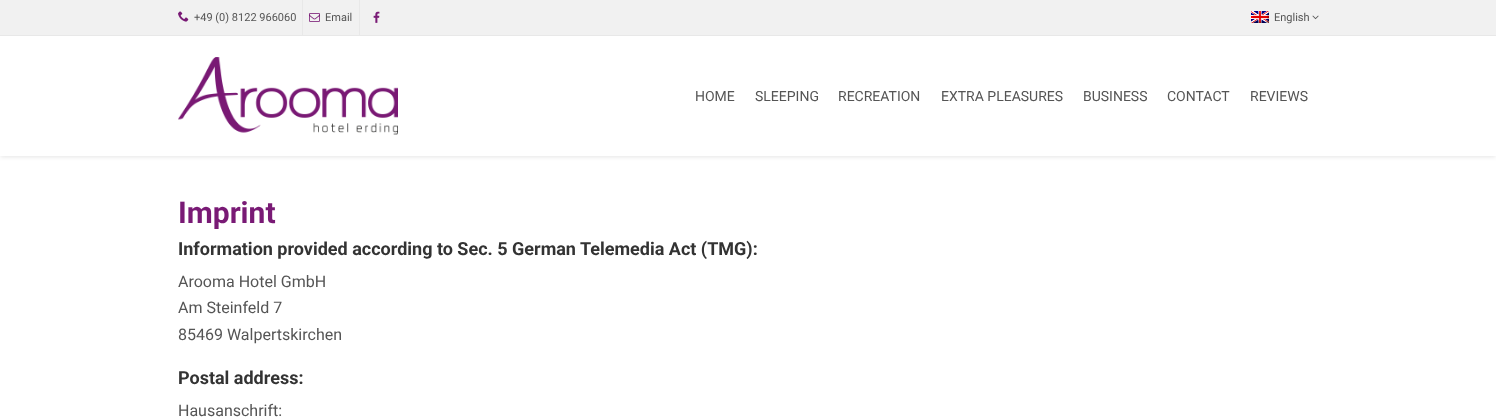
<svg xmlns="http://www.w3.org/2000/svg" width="1496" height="417">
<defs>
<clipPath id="clip1"><rect x="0" y="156" width="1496" height="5"/></clipPath>
</defs>
<rect width="100%" height="100%" fill="#fff"/>
<rect width="1496" height="35" fill="#f1f1f1"/>
<rect y="35" width="1496" height="1" fill="#e8e8e8"/>
<rect x="302" width="1" height="35" fill="#e8e8e8"/>
<image x="178" y="11" width="11" height="11" href="media/1.png"/>
<text x="194" y="21" style="font-family:Roboto;font-size:11px;fill:#555">+49 (0) 8122 966060</text>
<rect x="359" width="1" height="35" fill="#e8e8e8"/>
<image x="309" y="13" width="11" height="9" href="media/2.png"/>
<text x="325" y="21" style="font-family:Roboto;font-size:11px;fill:#555">Email</text>
<image x="373" y="11" width="7" height="12" href="media/3.png"/>
<image x="1251" y="11" width="18" height="12" href="media/4.png"/>
<text x="1274" y="21" style="font-family:Roboto;font-size:11px;fill:#555">English</text>
<image x="1312" y="15" width="7" height="5" href="media/5.png"/>
<image x="178" y="57" width="220" height="78" href="media/6.png"/>
<text x="695" y="101" style="font-family:Roboto;font-size:14px;fill:#555">HOME</text>
<text x="755" y="101" style="font-family:Roboto;font-size:14px;fill:#555">SLEEPING</text>
<text x="838" y="101" style="font-family:Roboto;font-size:14px;fill:#555">RECREATION</text>
<text x="941" y="101" style="font-family:Roboto;font-size:14px;fill:#555">EXTRA PLEASURES</text>
<text x="1083" y="101" style="font-family:Roboto;font-size:14px;fill:#555">BUSINESS</text>
<text x="1167" y="101" style="font-family:Roboto;font-size:14px;fill:#555">CONTACT</text>
<text x="1250" y="101" style="font-family:Roboto;font-size:14px;fill:#555">REVIEWS</text>
<g clip-path="url(#clip1)">
<rect y="152" width="1496" height="5" rx="2.5" fill="#0000001a" filter="blur(2px)"/>
</g>
<text x="178" y="223" style="font-family:Roboto;font-size:30px;font-weight:bold;fill:#791a75">Imprint</text>
<text x="178" y="255" style="font-family:Roboto;font-size:18px;font-weight:bold;fill:#333">Information provided according to Sec. 5 German Telemedia Act (TMG):</text>
<text x="178" y="287" style="font-family:Roboto;font-size:16px;fill:#555">Arooma Hotel GmbH</text>
<text x="178" y="313" style="font-family:Roboto;font-size:16px;fill:#555">Am Steinfeld 7</text>
<text x="178" y="340" style="font-family:Roboto;font-size:16px;fill:#555">85469 Walpertskirchen</text>
<text x="178" y="384" style="font-family:Roboto;font-size:18px;font-weight:bold;fill:#333">Postal address:</text>
<text x="178" y="416" style="font-family:Roboto;font-size:16px;fill:#555">Hausanschrift:</text>
</svg>
